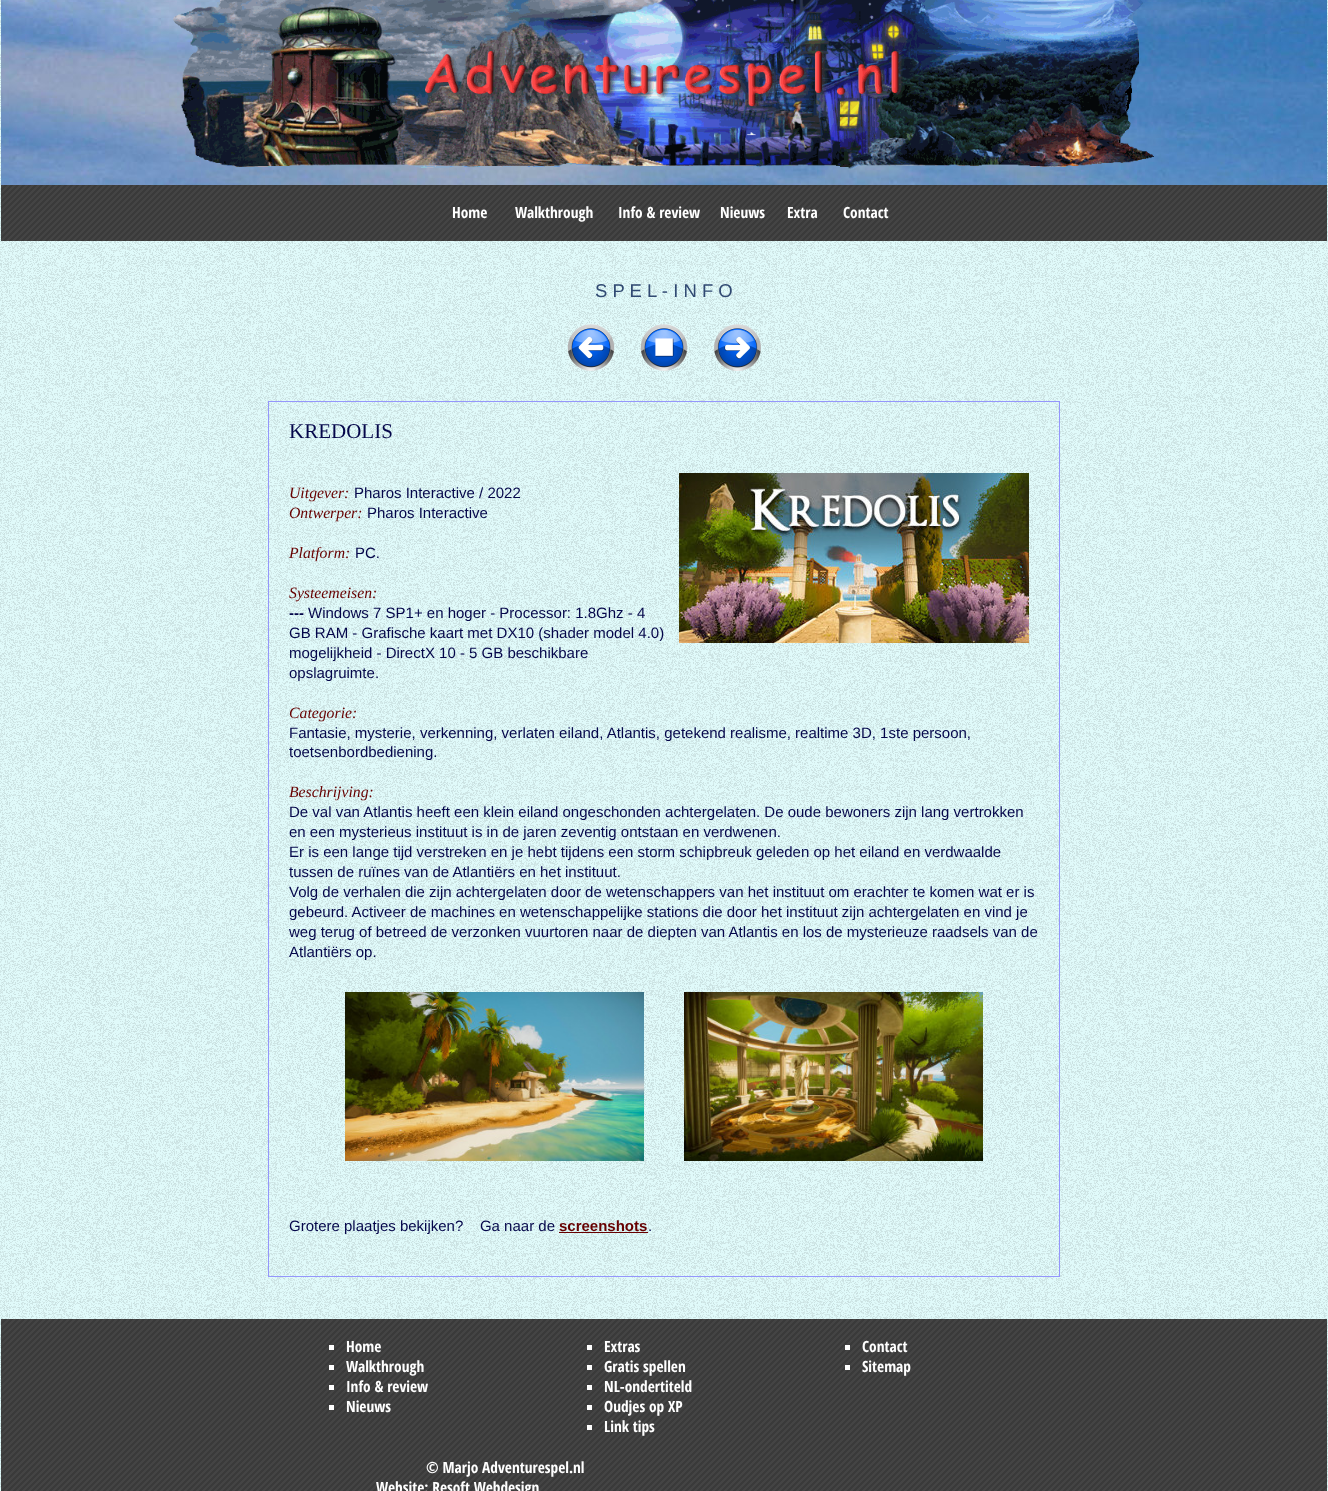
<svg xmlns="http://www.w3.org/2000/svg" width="1328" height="1491">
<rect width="100%" height="100%" fill="#e0fafa"/>
<image x="0" y="0" width="1328" height="1488" href="media/1.png"/>
<image x="1" y="0" width="1326" height="185" href="media/2.png"/>
<image x="173" y="0" width="981" height="169" href="media/3.png"/>
<image x="1" y="185" width="1326" height="56" href="media/4.png"/>
<text x="452" y="218" style="font-family:Open Sans Condensed;font-size:15.4px;font-weight:bold;fill:#fff">Home</text>
<text x="515" y="218" style="font-family:Open Sans Condensed;font-size:15.4px;font-weight:bold;fill:#fff">Walkthrough</text>
<text x="618" y="218" style="font-family:Open Sans Condensed;font-size:15.4px;font-weight:bold;fill:#fff">Info &amp; review</text>
<text x="720" y="218" style="font-family:Open Sans Condensed;font-size:15.4px;font-weight:bold;fill:#fff">Nieuws</text>
<text x="787" y="218" style="font-family:Open Sans Condensed;font-size:15.4px;font-weight:bold;fill:#fff">Extra</text>
<text x="843" y="218" style="font-family:Open Sans Condensed;font-size:15.4px;font-weight:bold;fill:#fff">Contact</text>
<text x="595" y="297" style="font-family:Liberation Sans;font-size:18.5px;fill:#304972">S P E L - I N F O</text>
<image x="567" y="322" width="48" height="49" href="media/5.png"/>
<image x="640" y="322" width="48" height="49" href="media/6.png"/>
<image x="714" y="322" width="47" height="49" href="media/7.png"/>
<rect x="268.5" y="401.5" width="791" height="875" fill="none" stroke="#9496fc"/>
<text x="289" y="438" style="font-family:Liberation Serif;font-size:21px;fill:#04064a">KREDOLIS</text>
<text x="289" y="498" style="font-family:Liberation Serif;font-size:15.75px;font-style:italic;fill:#600">Uitgever:</text>
<text x="354" y="498" style="font-family:Liberation Sans;font-size:15px;fill:#04064a">Pharos Interactive / 2022</text>
<image x="679" y="473" width="350" height="170" href="media/8.png"/>
<text x="289" y="518" style="font-family:Liberation Serif;font-size:15.75px;font-style:italic;fill:#600">Ontwerper:</text>
<text x="367" y="518" style="font-family:Liberation Sans;font-size:15px;fill:#04064a">Pharos Interactive</text>
<text x="289" y="558" style="font-family:Liberation Serif;font-size:15.75px;font-style:italic;fill:#600">Platform:</text>
<text x="355" y="558" style="font-family:Liberation Sans;font-size:15px;fill:#04064a">PC.</text>
<text x="289" y="598" style="font-family:Liberation Serif;font-size:15.75px;font-style:italic;fill:#600">Systeemeisen:</text>
<text x="289" y="618" style="font-family:Liberation Sans;font-size:15px;font-weight:bold;fill:#04064a">---</text>
<text x="308" y="618" style="font-family:Liberation Sans;font-size:15px;fill:#04064a">Windows 7 SP1+ en hoger - Processor: 1.8Ghz - 4</text>
<text x="289" y="638" style="font-family:Liberation Sans;font-size:15px;fill:#04064a">GB RAM - Grafische kaart met DX10 (shader model 4.0)</text>
<text x="289" y="658" style="font-family:Liberation Sans;font-size:15px;fill:#04064a">mogelijkheid - DirectX 10 - 5 GB beschikbare</text>
<text x="289" y="678" style="font-family:Liberation Sans;font-size:15px;fill:#04064a">opslagruimte.</text>
<text x="289" y="718" style="font-family:Liberation Serif;font-size:15.75px;font-style:italic;fill:#600">Categorie:</text>
<text x="289" y="738" style="font-family:Liberation Sans;font-size:15px;fill:#04064a">Fantasie, mysterie, verkenning, verlaten eiland, Atlantis, getekend realisme, realtime 3D, 1ste persoon,</text>
<text x="289" y="757" style="font-family:Liberation Sans;font-size:15px;fill:#04064a">toetsenbordbediening.</text>
<text x="289" y="797" style="font-family:Liberation Serif;font-size:15.75px;font-style:italic;fill:#600">Beschrijving:</text>
<text x="289" y="817" style="font-family:Liberation Sans;font-size:15px;fill:#04064a">De val van Atlantis heeft een klein eiland ongeschonden achtergelaten. De oude bewoners zijn lang vertrokken</text>
<text x="289" y="837" style="font-family:Liberation Sans;font-size:15px;fill:#04064a">en een mysterieus instituut is in de jaren zeventig ontstaan en verdwenen.</text>
<text x="289" y="857" style="font-family:Liberation Sans;font-size:15px;fill:#04064a">Er is een lange tijd verstreken en je hebt tijdens een storm schipbreuk geleden op het eiland en verdwaalde</text>
<text x="289" y="877" style="font-family:Liberation Sans;font-size:15px;fill:#04064a">tussen de ruïnes van de Atlantiërs en het instituut.</text>
<text x="289" y="897" style="font-family:Liberation Sans;font-size:15px;fill:#04064a">Volg de verhalen die zijn achtergelaten door de wetenschappers van het instituut om erachter te komen wat er is</text>
<text x="289" y="917" style="font-family:Liberation Sans;font-size:15px;fill:#04064a">gebeurd. Activeer de machines en wetenschappelijke stations die door het instituut zijn achtergelaten en vind je</text>
<text x="289" y="937" style="font-family:Liberation Sans;font-size:15px;fill:#04064a">weg terug of betreed de verzonken vuurtoren naar de diepten van Atlantis en los de mysterieuze raadsels van de</text>
<text x="289" y="957" style="font-family:Liberation Sans;font-size:15px;fill:#04064a">Atlantiërs op.</text>
<image x="345" y="992" width="299" height="169" href="media/9.png"/>
<image x="684" y="992" width="299" height="169" href="media/10.png"/>
<text x="289" y="1231" style="font-family:Liberation Sans;font-size:15px;fill:#04064a" xml:space="preserve">Grotere plaatjes bekijken?    Ga naar de</text>
<text x="559" y="1231" style="font-family:Liberation Sans;font-size:15px;font-weight:bold;fill:#600">screenshots</text>
<rect x="559" y="1232" width="89" height="1" fill="#600"/>
<text x="648" y="1231" style="font-family:Liberation Sans;font-size:15px;fill:#04064a">.</text>
<image x="1" y="1319" width="1326" height="172" href="media/11.png"/>
<rect x="329" y="1345" width="5" height="5" fill="#fff"/>
<text x="346" y="1352" style="font-family:Open Sans Condensed;font-size:15.4px;font-weight:bold;fill:#fff">Home</text>
<rect x="329" y="1365" width="5" height="5" fill="#fff"/>
<text x="346" y="1372" style="font-family:Open Sans Condensed;font-size:15.4px;font-weight:bold;fill:#fff">Walkthrough</text>
<rect x="329" y="1385" width="5" height="5" fill="#fff"/>
<text x="346" y="1392" style="font-family:Open Sans Condensed;font-size:15.4px;font-weight:bold;fill:#fff">Info &amp; review</text>
<rect x="329" y="1405" width="5" height="5" fill="#fff"/>
<text x="346" y="1412" style="font-family:Open Sans Condensed;font-size:15.4px;font-weight:bold;fill:#fff">Nieuws</text>
<rect x="587" y="1345" width="5" height="5" fill="#fff"/>
<text x="604" y="1352" style="font-family:Open Sans Condensed;font-size:15.4px;font-weight:bold;fill:#fff">Extras</text>
<rect x="587" y="1365" width="5" height="5" fill="#fff"/>
<text x="604" y="1372" style="font-family:Open Sans Condensed;font-size:15.4px;font-weight:bold;fill:#fff">Gratis spellen</text>
<rect x="587" y="1385" width="5" height="5" fill="#fff"/>
<text x="604" y="1392" style="font-family:Open Sans Condensed;font-size:15.4px;font-weight:bold;fill:#fff">NL-ondertiteld</text>
<rect x="587" y="1405" width="5" height="5" fill="#fff"/>
<text x="604" y="1412" style="font-family:Open Sans Condensed;font-size:15.4px;font-weight:bold;fill:#fff">Oudjes op XP</text>
<rect x="587" y="1425" width="5" height="5" fill="#fff"/>
<text x="604" y="1432" style="font-family:Open Sans Condensed;font-size:15.4px;font-weight:bold;fill:#fff">Link tips</text>
<rect x="845" y="1345" width="5" height="5" fill="#fff"/>
<text x="862" y="1352" style="font-family:Open Sans Condensed;font-size:15.4px;font-weight:bold;fill:#fff">Contact</text>
<rect x="845" y="1365" width="5" height="5" fill="#fff"/>
<text x="862" y="1372" style="font-family:Open Sans Condensed;font-size:15.4px;font-weight:bold;fill:#fff">Sitemap</text>
<text x="426" y="1473" style="font-family:Open Sans Condensed;font-size:15.4px;font-weight:bold;fill:#fff">© Marjo Adventurespel.nl</text>
<text x="376" y="1493" style="font-family:Open Sans Condensed;font-size:15.4px;font-weight:bold;fill:#fff">Website: Resoft Webdesign</text>
</svg>
